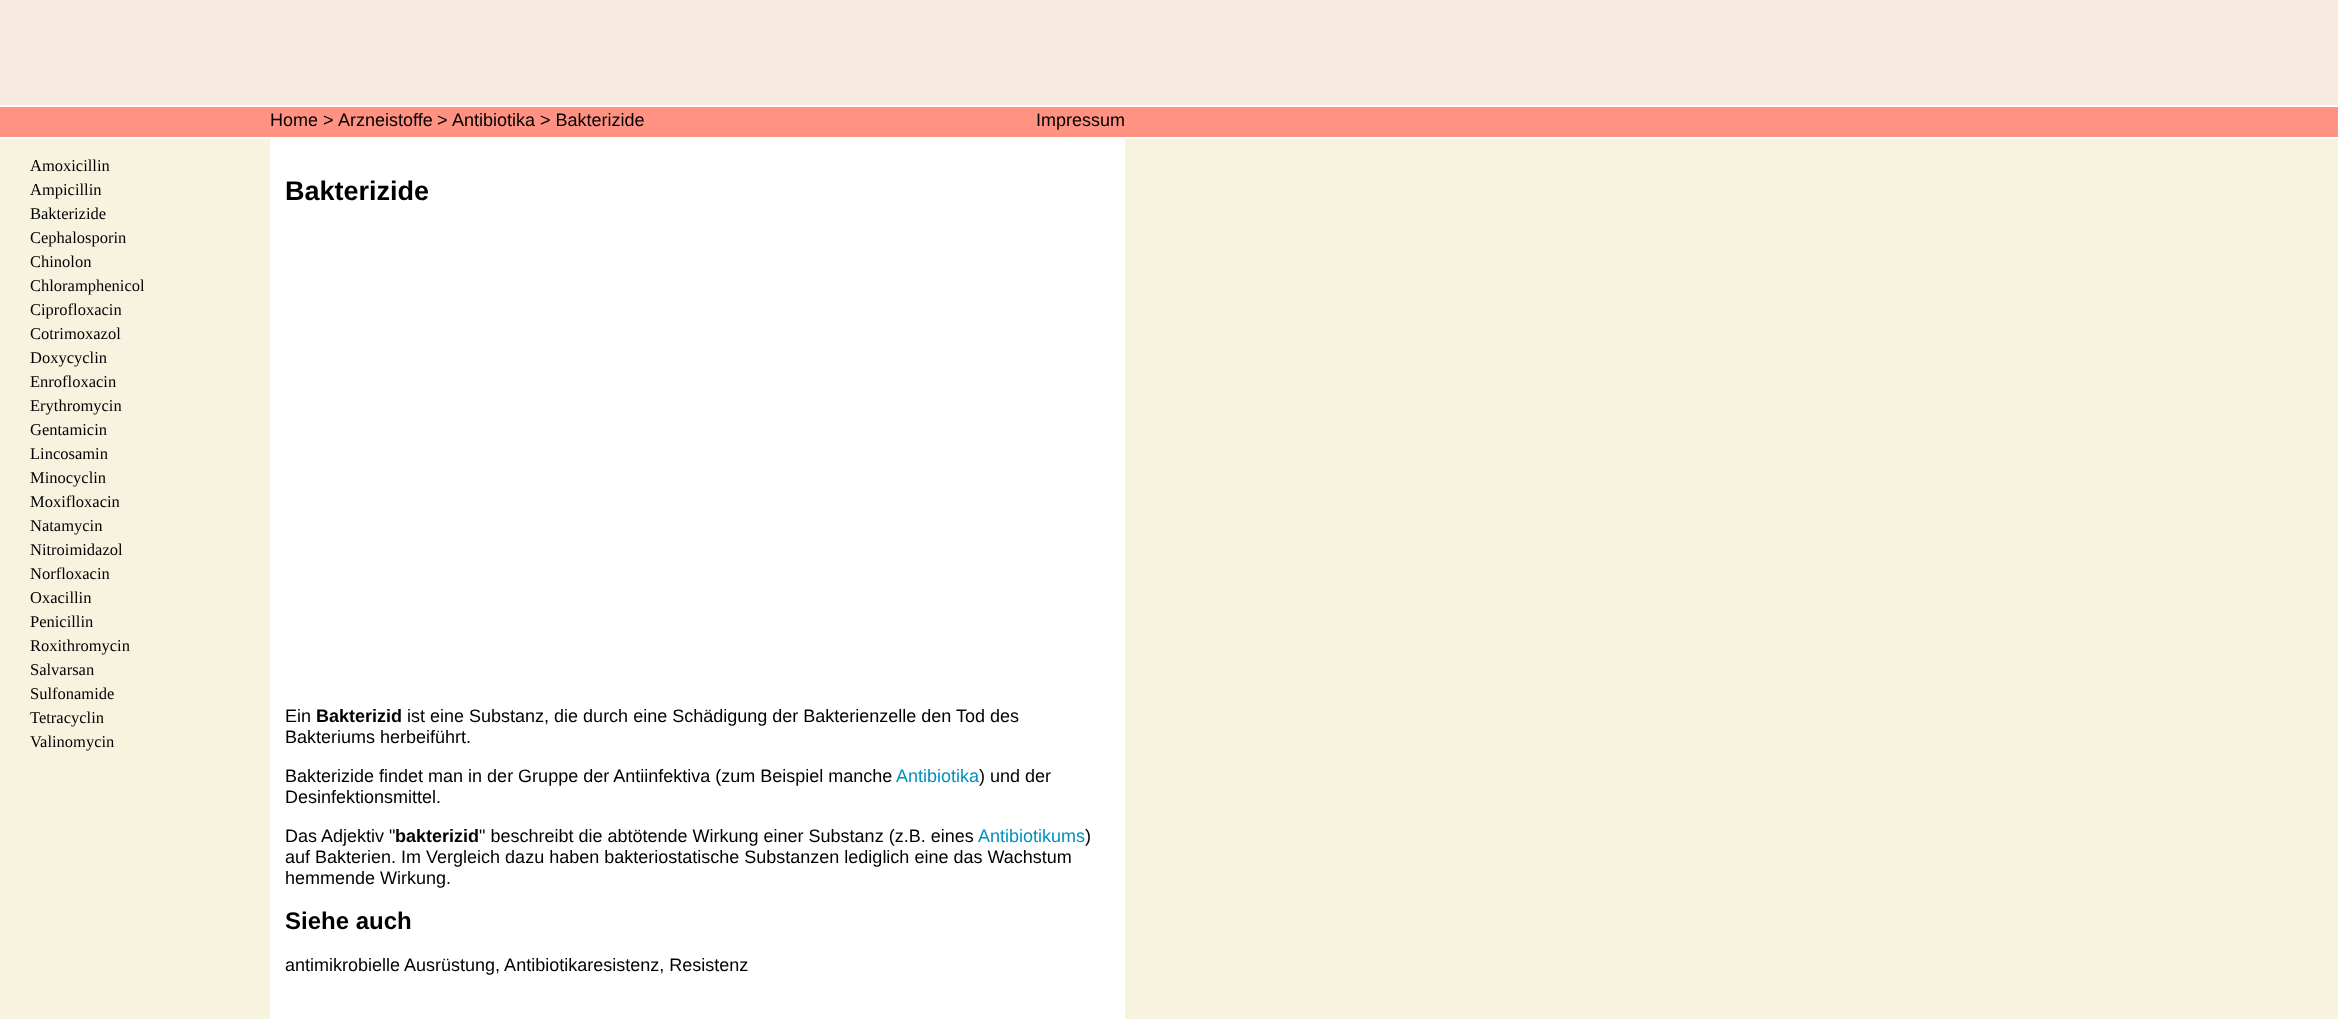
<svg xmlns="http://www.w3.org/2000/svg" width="2338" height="1019">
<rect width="100%" height="100%" fill="#f7f3df"/>
<rect width="2338" height="105" fill="#f8e9de"/>
<rect y="105" width="2338" height="2" fill="#fff"/>
<rect y="107" width="2338" height="30" fill="#ff9282"/>
<rect y="137" width="2338" height="2" fill="#fff"/>
<text x="270" y="126" style="font-family:Liberation Sans;font-size:18px;fill:#000">Home</text>
<text x="323" y="126" style="font-family:Liberation Sans;font-size:18px;fill:#000">&gt;</text>
<text x="338" y="126" style="font-family:Liberation Sans;font-size:18px;fill:#000">Arzneistoffe</text>
<text x="437" y="126" style="font-family:Liberation Sans;font-size:18px;fill:#000">&gt;</text>
<text x="452" y="126" style="font-family:Liberation Sans;font-size:18px;fill:#000">Antibiotika &gt; Bakterizide</text>
<text x="1036" y="126" style="font-family:Liberation Sans;font-size:18px;fill:#000">Impressum</text>
<text x="30" y="171" style="font-family:Liberation Serif;font-size:16.5px;fill:#000">Amoxicillin</text>
<text x="30" y="195" style="font-family:Liberation Serif;font-size:16.5px;fill:#000">Ampicillin</text>
<text x="30" y="219" style="font-family:Liberation Serif;font-size:16.5px;fill:#000">Bakterizide</text>
<text x="30" y="243" style="font-family:Liberation Serif;font-size:16.5px;fill:#000">Cephalosporin</text>
<text x="30" y="267" style="font-family:Liberation Serif;font-size:16.5px;fill:#000">Chinolon</text>
<text x="30" y="291" style="font-family:Liberation Serif;font-size:16.5px;fill:#000">Chloramphenicol</text>
<text x="30" y="315" style="font-family:Liberation Serif;font-size:16.5px;fill:#000">Ciprofloxacin</text>
<text x="30" y="339" style="font-family:Liberation Serif;font-size:16.5px;fill:#000">Cotrimoxazol</text>
<text x="30" y="363" style="font-family:Liberation Serif;font-size:16.5px;fill:#000">Doxycyclin</text>
<text x="30" y="387" style="font-family:Liberation Serif;font-size:16.5px;fill:#000">Enrofloxacin</text>
<text x="30" y="411" style="font-family:Liberation Serif;font-size:16.5px;fill:#000">Erythromycin</text>
<text x="30" y="435" style="font-family:Liberation Serif;font-size:16.5px;fill:#000">Gentamicin</text>
<text x="30" y="459" style="font-family:Liberation Serif;font-size:16.5px;fill:#000">Lincosamin</text>
<text x="30" y="483" style="font-family:Liberation Serif;font-size:16.5px;fill:#000">Minocyclin</text>
<text x="30" y="507" style="font-family:Liberation Serif;font-size:16.5px;fill:#000">Moxifloxacin</text>
<text x="30" y="531" style="font-family:Liberation Serif;font-size:16.5px;fill:#000">Natamycin</text>
<text x="30" y="555" style="font-family:Liberation Serif;font-size:16.5px;fill:#000">Nitroimidazol</text>
<text x="30" y="579" style="font-family:Liberation Serif;font-size:16.5px;fill:#000">Norfloxacin</text>
<text x="30" y="603" style="font-family:Liberation Serif;font-size:16.5px;fill:#000">Oxacillin</text>
<text x="30" y="627" style="font-family:Liberation Serif;font-size:16.5px;fill:#000">Penicillin</text>
<text x="30" y="651" style="font-family:Liberation Serif;font-size:16.5px;fill:#000">Roxithromycin</text>
<text x="30" y="675" style="font-family:Liberation Serif;font-size:16.5px;fill:#000">Salvarsan</text>
<text x="30" y="699" style="font-family:Liberation Serif;font-size:16.5px;fill:#000">Sulfonamide</text>
<text x="30" y="723" style="font-family:Liberation Serif;font-size:16.5px;fill:#000">Tetracyclin</text>
<text x="30" y="747" style="font-family:Liberation Serif;font-size:16.5px;fill:#000">Valinomycin</text>
<rect x="270" y="139" width="855" height="880" fill="#fff"/>
<text x="285" y="200" style="font-family:Liberation Sans;font-size:27px;font-weight:bold;fill:#000">Bakterizide</text>
<text x="285" y="722" style="font-family:Liberation Sans;font-size:18px;fill:#000">Ein</text>
<text x="316" y="722" style="font-family:Liberation Sans;font-size:18px;font-weight:bold;fill:#000">Bakterizid</text>
<text x="407" y="722" style="font-family:Liberation Sans;font-size:18px;fill:#000">ist eine Substanz, die durch eine Schädigung der Bakterienzelle den Tod des</text>
<text x="285" y="743" style="font-family:Liberation Sans;font-size:18px;fill:#000">Bakteriums herbeiführt.</text>
<text x="285" y="782" style="font-family:Liberation Sans;font-size:18px;fill:#000">Bakterizide findet man in der Gruppe der Antiinfektiva (zum Beispiel manche</text>
<text x="896" y="782" style="font-family:Liberation Sans;font-size:18px;fill:#0091c2">Antibiotika</text>
<text x="979" y="782" style="font-family:Liberation Sans;font-size:18px;fill:#000">) und der</text>
<text x="285" y="803" style="font-family:Liberation Sans;font-size:18px;fill:#000">Desinfektionsmittel.</text>
<text x="285" y="842" style="font-family:Liberation Sans;font-size:18px;fill:#000">Das Adjektiv "</text>
<text x="395" y="842" style="font-family:Liberation Sans;font-size:18px;font-weight:bold;fill:#000">bakterizid</text>
<text x="479" y="842" style="font-family:Liberation Sans;font-size:18px;fill:#000">" beschreibt die abtötende Wirkung einer Substanz (z.B. eines</text>
<text x="978" y="842" style="font-family:Liberation Sans;font-size:18px;fill:#0091c2">Antibiotikums</text>
<text x="1085" y="842" style="font-family:Liberation Sans;font-size:18px;fill:#000">)</text>
<text x="285" y="863" style="font-family:Liberation Sans;font-size:18px;fill:#000">auf Bakterien. Im Vergleich dazu haben bakteriostatische Substanzen lediglich eine das Wachstum</text>
<text x="285" y="884" style="font-family:Liberation Sans;font-size:18px;fill:#000">hemmende Wirkung.</text>
<text x="285" y="929" style="font-family:Liberation Sans;font-size:24px;font-weight:bold;fill:#000">Siehe auch</text>
<text x="285" y="971" style="font-family:Liberation Sans;font-size:18px;fill:#000">antimikrobielle Ausrüstung, Antibiotikaresistenz, Resistenz</text>
</svg>
